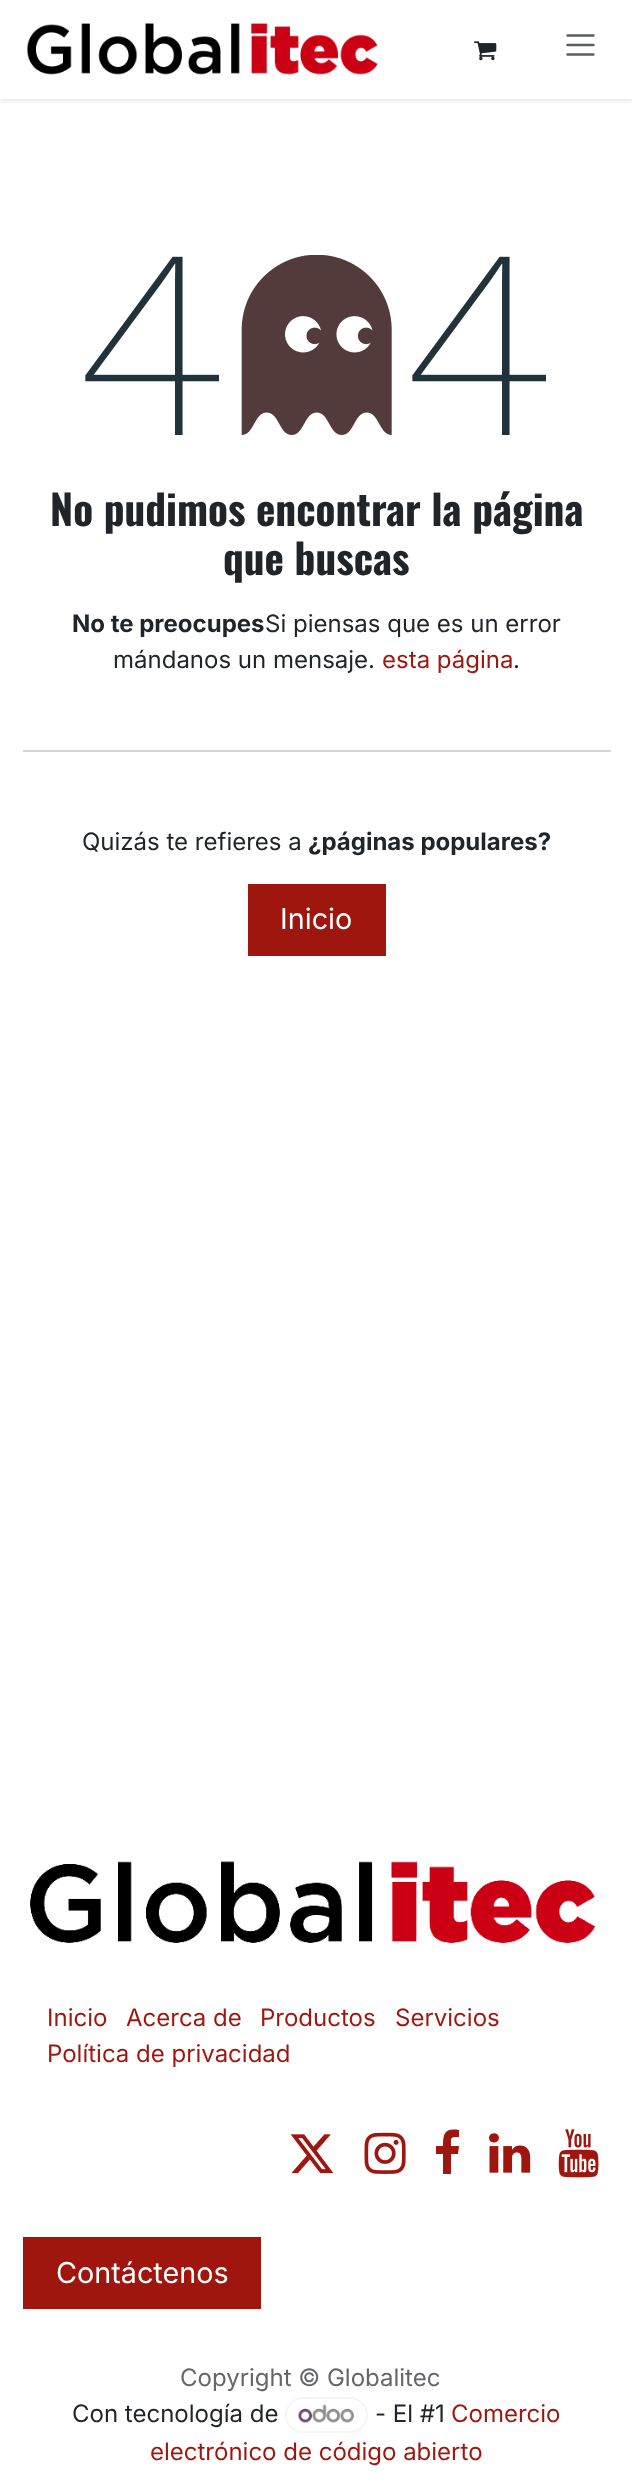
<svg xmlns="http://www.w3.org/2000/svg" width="632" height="2492">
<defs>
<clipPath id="clip1"><rect x="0" y="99" width="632" height="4"/></clipPath>
</defs>
<rect width="100%" height="100%" fill="#fff"/>
<g clip-path="url(#clip1)">
<rect y="2" width="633" height="99" fill="#0000001a" filter="blur(2px)"/>
</g>
<image x="26" y="23" width="352" height="52" href="media/1.png"/>
<image x="474" y="41" width="23" height="20" href="media/2.png"/>
<path d="M567.5 35.5h26m-26 9.5h26m-26 9.5h26" fill="none" stroke="#595c5f" stroke-width="2.4" stroke-linecap="round"/>
<image x="85" y="255" width="461" height="180" href="media/3.png"/>
<text x="50" y="526" style="font-family:Oswald;font-size:41.25px;font-weight:bold;fill:#212529">No pudimos encontrar la página</text>
<text x="223" y="575" style="font-family:Oswald;font-size:41.25px;font-weight:bold;fill:#212529">que buscas</text>
<text x="72" y="632" style="font-family:Inter;font-size:24px;font-weight:bold;fill:#212529">No te preocupes</text>
<text x="265" y="632" style="font-family:Inter;font-size:24px;fill:#212529">Si piensas que es un error</text>
<text x="113" y="668" style="font-family:Inter;font-size:24px;fill:#212529">mándanos un mensaje.</text>
<text x="382" y="668" style="font-family:Inter;font-size:24px;fill:#9e160d">esta página</text>
<text x="513" y="668" style="font-family:Inter;font-size:24px;fill:#212529">.</text>
<rect x="23" y="750" width="588" height="2" fill="#ced4da"/>
<text x="82" y="850" style="font-family:Inter;font-size:24px;fill:#212529">Quizás te refieres a</text>
<text x="308" y="850" style="font-family:Inter;font-size:24px;font-weight:bold;fill:#212529">¿páginas populares?</text>
<rect x="249.5" y="885.5" width="135" height="69" fill="#9e160d" stroke="#9e160d" stroke-width="3"/>
<text x="280" y="929" style="font-family:Inter;font-size:28.75px;fill:#fff">Inicio</text>
<image x="30" y="1861" width="566" height="82" href="media/4.png"/>
<text x="47" y="2026" style="font-family:Inter;font-size:24px;fill:#9e160d">Inicio</text>
<text x="126" y="2026" style="font-family:Inter;font-size:24px;fill:#9e160d">Acerca de</text>
<text x="260" y="2026" style="font-family:Inter;font-size:24px;fill:#9e160d">Productos</text>
<text x="395" y="2026" style="font-family:Inter;font-size:24px;fill:#9e160d">Servicios</text>
<text x="47" y="2062" style="font-family:Inter;font-size:24px;fill:#9e160d">Política de privacidad</text>
<image x="290" y="2134" width="44" height="40" href="media/5.png"/>
<image x="364" y="2132" width="42" height="42" href="media/6.png"/>
<path d="M459 2130v7c-9 0-8 0-8 9h8l-1 8h-7v20h-8v-20h-7v-8h7c0-13 2-18 16-16z" fill="#9e160d"/>
<image x="489" y="2133" width="42" height="40" href="media/7.png"/>
<image x="558" y="2129" width="41" height="49" href="media/8.png"/>
<rect x="24.5" y="2238.5" width="235" height="69" fill="#9e160d" stroke="#9e160d" stroke-width="3"/>
<text x="56" y="2283" style="font-family:Inter;font-size:28.75px;fill:#fff">Contáctenos</text>
<text x="180" y="2386" style="font-family:Inter;font-size:24px;fill:#646669">Copyright © Globalitec</text>
<text x="72" y="2422" style="font-family:Inter;font-size:24px;fill:#212529">Con tecnología de</text>
<rect x="286" y="2398" width="81" height="34" rx="17" fill="none" stroke="#f7f6f6" stroke-width="2"/>
<image x="298" y="2404" width="56" height="19" href="media/9.png"/>
<text x="375" y="2422" style="font-family:Inter;font-size:24px;fill:#212529">- El #1</text>
<text x="451" y="2422" style="font-family:Inter;font-size:24px;fill:#9e160d">Comercio</text>
<text x="150" y="2460" style="font-family:Inter;font-size:24px;fill:#9e160d">electrónico de código abierto</text>
</svg>
